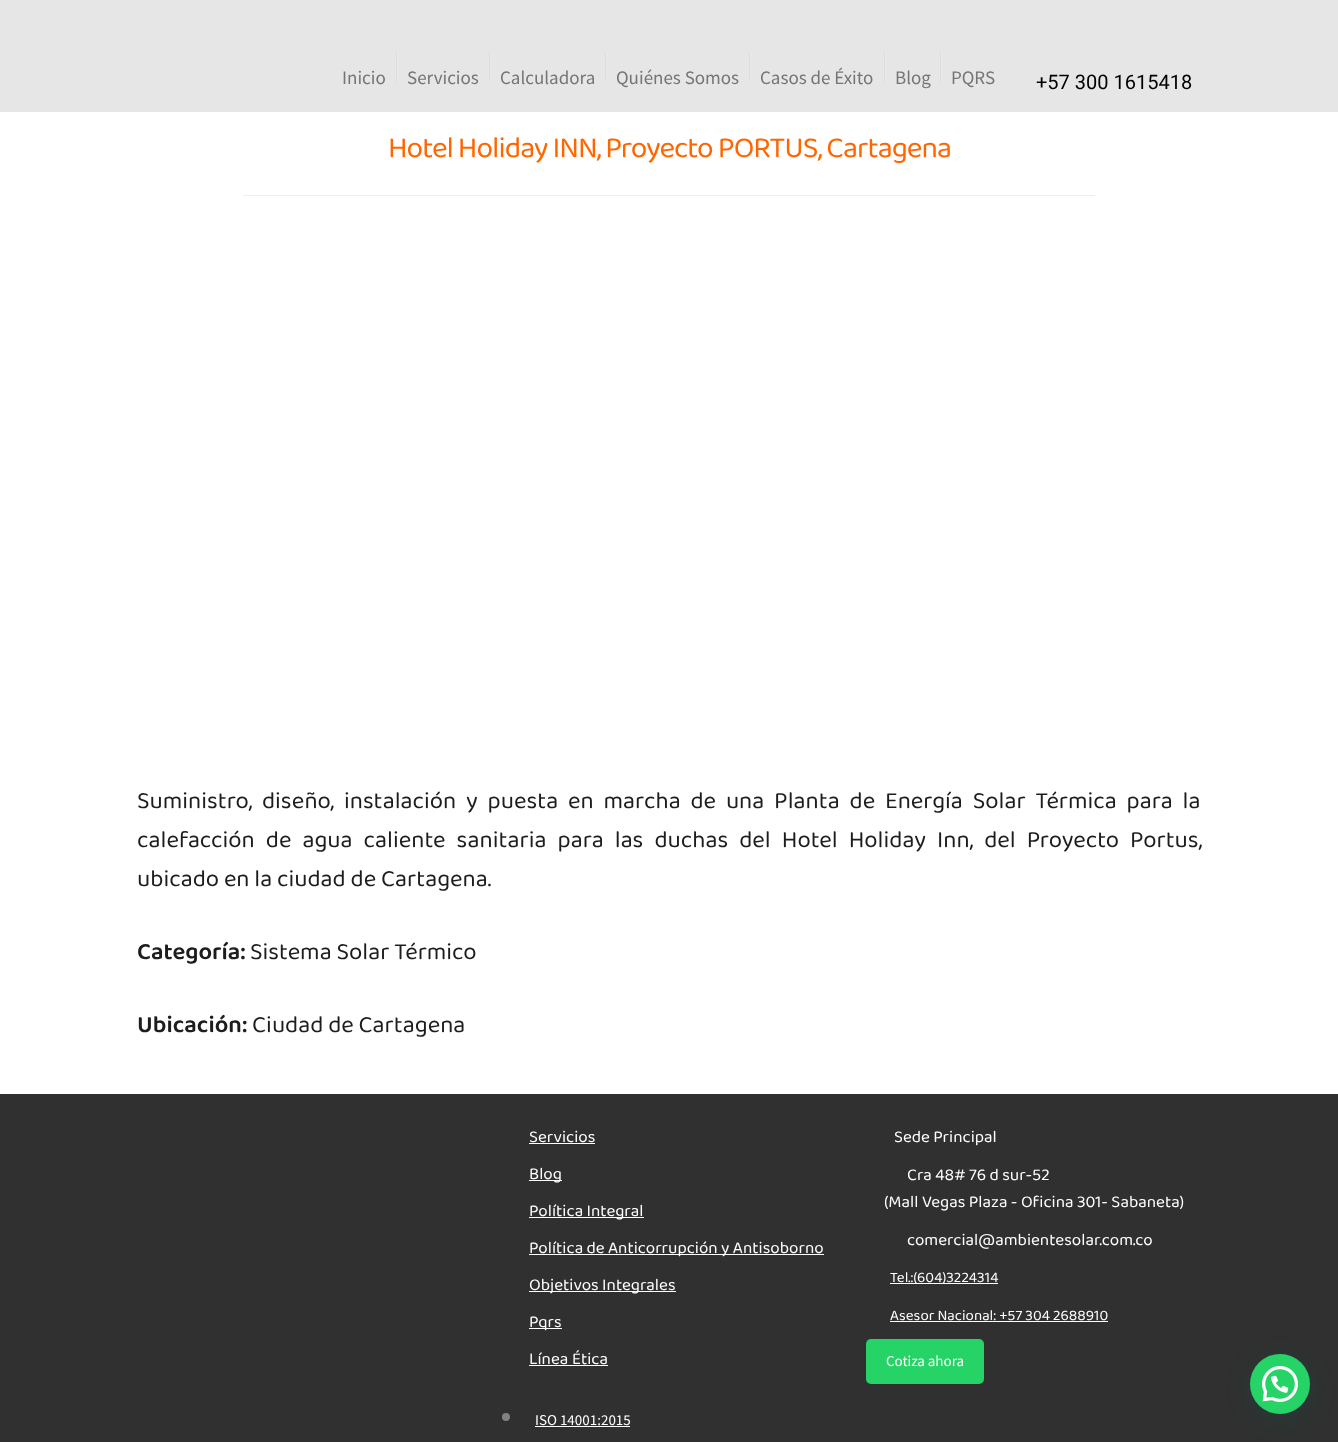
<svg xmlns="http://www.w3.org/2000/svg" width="1338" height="1442">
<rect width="100%" height="100%" fill="#fff"/>
<rect width="1338" height="112" fill="#e6e6e6"/>
<text x="342" y="84" style="font-family:Source Sans Pro;font-size:19px;fill:#757575">Inicio</text>
<rect x="397" y="52" width="1" height="30" fill="#e9e9e9"/>
<rect x="396" y="52" width="1" height="30" fill="#ddd"/>
<text x="407" y="84" style="font-family:Source Sans Pro;font-size:19px;fill:#757575">Servicios</text>
<rect x="490" y="52" width="1" height="30" fill="#e9e9e9"/>
<rect x="489" y="52" width="1" height="30" fill="#ddd"/>
<text x="500" y="84" style="font-family:Source Sans Pro;font-size:19px;fill:#757575">Calculadora</text>
<rect x="606" y="52" width="1" height="30" fill="#e9e9e9"/>
<rect x="605" y="52" width="1" height="30" fill="#ddd"/>
<text x="616" y="84" style="font-family:Source Sans Pro;font-size:19px;fill:#757575">Quiénes Somos</text>
<rect x="750" y="52" width="1" height="30" fill="#e9e9e9"/>
<rect x="749" y="52" width="1" height="30" fill="#ddd"/>
<text x="760" y="84" style="font-family:Source Sans Pro;font-size:19px;fill:#757575">Casos de Éxito</text>
<rect x="885" y="52" width="1" height="30" fill="#e9e9e9"/>
<rect x="884" y="52" width="1" height="30" fill="#ddd"/>
<text x="895" y="84" style="font-family:Source Sans Pro;font-size:19px;fill:#757575">Blog</text>
<rect x="941" y="52" width="1" height="30" fill="#e9e9e9"/>
<rect x="940" y="52" width="1" height="30" fill="#ddd"/>
<text x="951" y="84" style="font-family:Source Sans Pro;font-size:19px;fill:#757575">PQRS</text>
<text x="1036" y="89" style="font-family:Roboto;font-size:20px;fill:#000">+57 300 1615418</text>
<text x="388" y="157" style="font-family:'Baloo 2';font-size:30px;letter-spacing:-1px;fill:#f60">Hotel Holiday INN, Proyecto PORTUS, Cartagena</text>
<rect x="243" y="195" width="852" height="1" fill="#eee"/>
<text x="137" y="808" word-spacing="5" style="font-family:'Baloo 2';font-size:24px;fill:#1d1d1d">Suministro, diseño, instalación y puesta en marcha de una Planta de Energía Solar Térmica para la</text>
<text x="137" y="847" word-spacing="6.25" style="font-family:'Baloo 2';font-size:24px;fill:#1d1d1d">calefacción de agua caliente sanitaria para las duchas del Hotel Holiday Inn, del Proyecto Portus,</text>
<text x="137" y="886" style="font-family:'Baloo 2';font-size:24px;fill:#1d1d1d">ubicado en la ciudad de Cartagena.</text>
<text x="137" y="959" style="font-family:'Baloo 2';font-size:24px;font-weight:600;fill:#1d1d1d">Categoría:</text>
<text x="250" y="959" style="font-family:'Baloo 2';font-size:24px;fill:#1d1d1d">Sistema Solar Térmico</text>
<text x="137" y="1032" style="font-family:'Baloo 2';font-size:24px;font-weight:600;fill:#1d1d1d">Ubicación:</text>
<text x="252" y="1032" style="font-family:'Baloo 2';font-size:24px;fill:#1d1d1d">Ciudad de Cartagena</text>
<rect y="1094" width="1338" height="348" fill="#303030"/>
<text x="529" y="1142" style="font-family:'Baloo 2';font-size:17px;fill:#fff">Servicios</text>
<rect x="529" y="1143" width="66" height="1" fill="#fff"/>
<rect x="529" y="1180" width="33" height="1" fill="#fff"/>
<text x="529" y="1179" style="font-family:'Baloo 2';font-size:17px;fill:#fff">Blog</text>
<rect x="529" y="1217" width="115" height="1" fill="#fff"/>
<text x="529" y="1216" style="font-family:'Baloo 2';font-size:17px;fill:#fff">Política Integral</text>
<rect x="529" y="1254" width="295" height="1" fill="#fff"/>
<text x="529" y="1253" style="font-family:'Baloo 2';font-size:17px;fill:#fff">Política de Anticorrupción y Antisoborno</text>
<rect x="529" y="1291" width="147" height="1" fill="#fff"/>
<text x="529" y="1290" style="font-family:'Baloo 2';font-size:17px;fill:#fff">Objetivos Integrales</text>
<rect x="529" y="1328" width="33" height="1" fill="#fff"/>
<text x="529" y="1327" style="font-family:'Baloo 2';font-size:17px;fill:#fff">Pqrs</text>
<text x="529" y="1364" style="font-family:'Baloo 2';font-size:17px;fill:#fff">Línea Ética</text>
<rect x="529" y="1365" width="79" height="1" fill="#fff"/>
<circle cx="506" cy="1417" r="4" fill="#828282"/>
<text x="535" y="1425" style="font-family:Source Sans Pro;font-size:15px;fill:#fff">ISO 14001:2015</text>
<rect x="535" y="1426" width="95" height="1" fill="#fff"/>
<text x="894" y="1142" style="font-family:'Baloo 2';font-size:17px;fill:#fff">Sede Principal</text>
<text x="907" y="1180" style="font-family:'Baloo 2';font-size:17px;fill:#fff">Cra 48# 76 d sur-52</text>
<text x="884" y="1207" style="font-family:'Baloo 2';font-size:17px;fill:#fff">(Mall Vegas Plaza - Oficina 301- Sabaneta)</text>
<text x="907" y="1245" style="font-family:'Baloo 2';font-size:17px;fill:#fff">comercial@ambientesolar.com.co</text>
<rect x="890" y="1283" width="108" height="1" fill="#fff"/>
<text x="890" y="1282" style="font-family:'Baloo 2';font-size:15px;fill:#fff">Tel.:(604)3224314</text>
<text x="890" y="1320" style="font-family:'Baloo 2';font-size:15px;fill:#fff">Asesor Nacional: +57 304 2688910</text>
<rect x="890" y="1321" width="218" height="1" fill="#fff"/>
<rect x="866" y="1339" width="118" height="45" rx="5" fill="#25d366"/>
<text x="886" y="1366" style="font-family:Source Sans Pro;font-size:15px;fill:#fff">Cotiza ahora</text>
<rect x="1251" y="1360" width="60" height="60" rx="30" fill="#075e543d" filter="blur(12px)"/>
<circle cx="1280" cy="1384" r="30" fill="#25d366"/>
<image x="1262" y="1366" width="36" height="36" href="media/1.png"/>
</svg>
